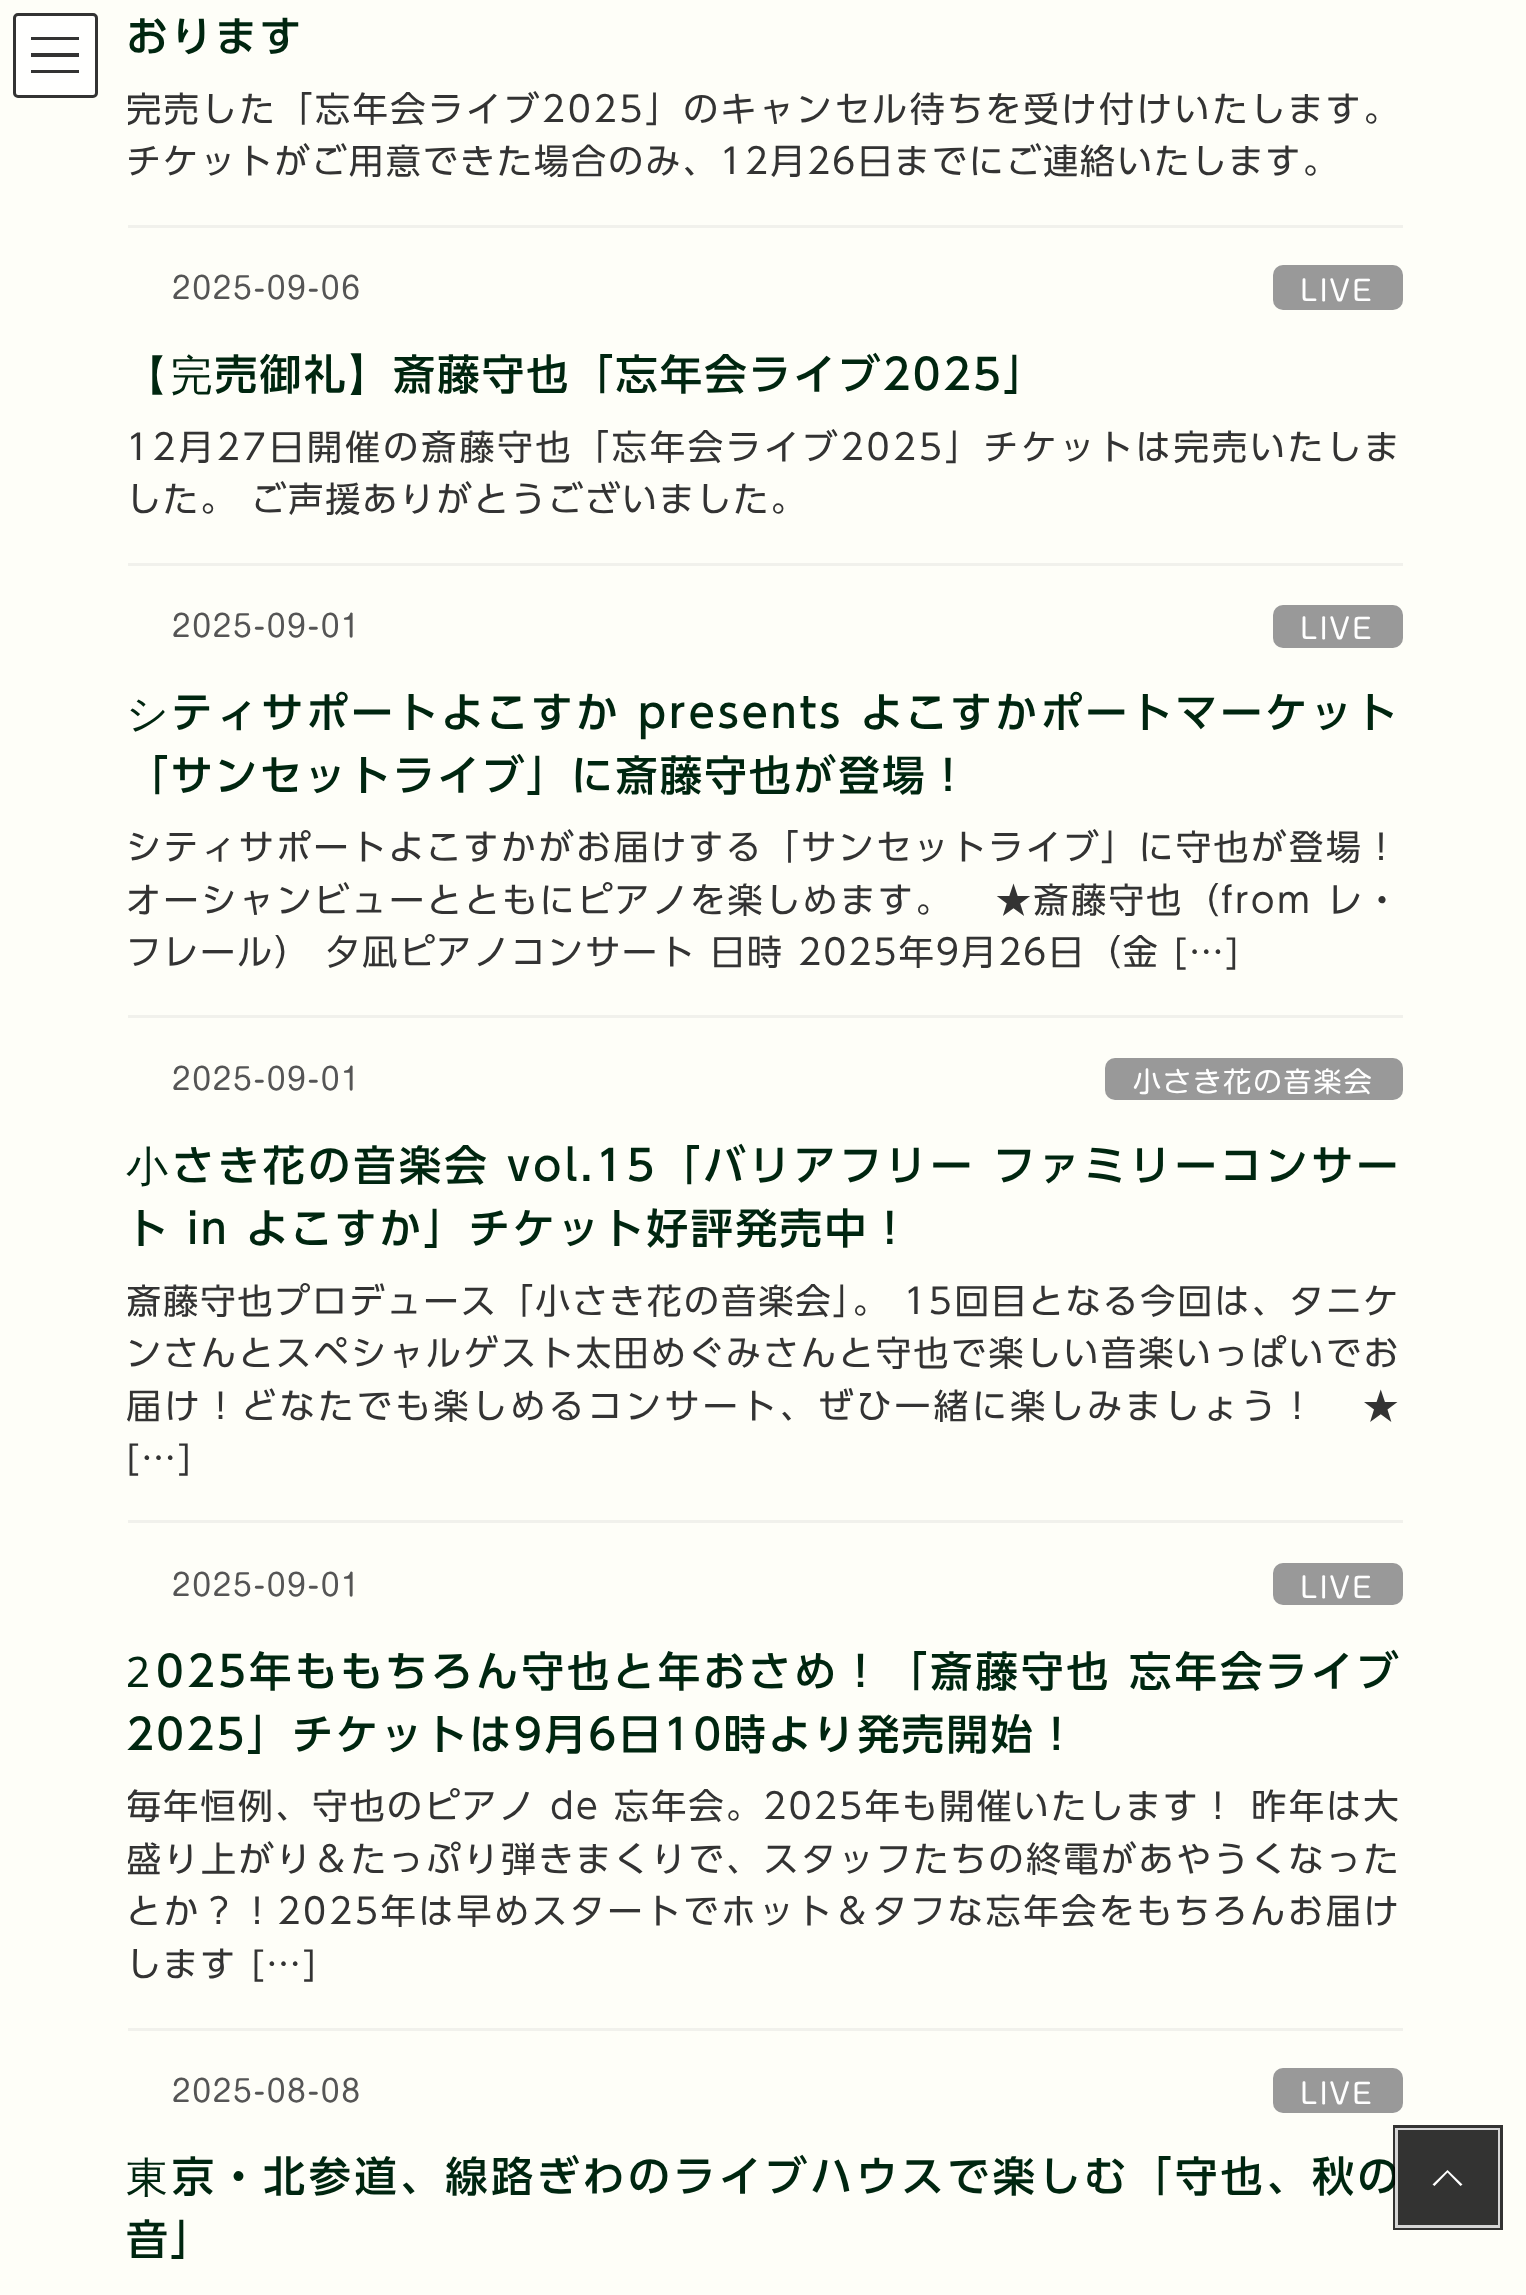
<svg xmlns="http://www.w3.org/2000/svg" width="1526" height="2295">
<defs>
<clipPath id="clip1"><rect x="128" y="85" width="1275" height="105"/></clipPath>
<clipPath id="clip2"><rect x="128" y="1275" width="1275" height="210"/></clipPath>
<clipPath id="clip3"><rect x="128" y="1783" width="1275" height="210"/></clipPath>
</defs>
<rect width="100%" height="100%" fill="#fefef8"/>
<rect x="13" y="13" width="85" height="85" rx="5" fill="#fffffe"/>
<rect x="31" y="37" width="48" height="3" fill="#333"/>
<rect x="31" y="53" width="48" height="4" fill="#333"/>
<rect x="31" y="70" width="48" height="3" fill="#333"/>
<rect x="14.5" y="14.5" width="82" height="82" rx="3.5" fill="none" stroke="#333" stroke-width="3"/>
<rect x="128" y="225" width="1275" height="3" fill="#f1f1ec"/>
<text x="126" y="52" style="font-family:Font;font-size:42px;font-weight:500;letter-spacing:2.5px;fill:#002610">おります</text>
<g clip-path="url(#clip1)">
<text x="126" y="122" style="font-family:'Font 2';font-size:35px;letter-spacing:2.8px;fill:#333">完売した「忘年会ライブ2025」のキャンセル待ちを受け付けいたします。</text>
</g>
<text x="126" y="174" style="font-family:'Font 2';font-size:35px;letter-spacing:2.1px;fill:#333">チケットがご用意できた場合のみ、12月26日までにご連絡いたします。</text>
<rect x="128" y="563" width="1275" height="3" fill="#f1f1ec"/>
<text x="172" y="299" style="font-family:Font;font-size:30px;letter-spacing:2.1px;fill:#555">2025-09-06</text>
<rect x="1273" y="265" width="130" height="45" rx="10" fill="#999"/>
<text x="1300" y="301" style="font-family:Font;font-size:28px;letter-spacing:2.1px;fill:#fff">LIVE</text>
<text x="126" y="390" style="font-family:Noto Sans;font-size:42px;letter-spacing:2.5px;fill:#002610">【完</text>
<text x="215" y="390" style="font-family:Font;font-size:42px;font-weight:500;letter-spacing:2.5px;fill:#002610">売御礼】斎藤守也「忘年会ライブ2025」</text>
<text x="126" y="460" style="font-family:'Font 2';font-size:35px;letter-spacing:3.1px;fill:#333">12月27日開催の斎藤守也「忘年会ライブ2025」チケットは完売いたしま</text>
<text x="126" y="512" style="font-family:'Font 2';font-size:35px;letter-spacing:2.1px;fill:#333">した。 ご声援ありがとうございました。</text>
<rect x="128" y="1015" width="1275" height="3" fill="#f1f1ec"/>
<text x="172" y="637" style="font-family:Font;font-size:30px;letter-spacing:2.1px;fill:#555">2025-09-01</text>
<rect x="1273" y="605" width="130" height="43" rx="10" fill="#999"/>
<text x="1300" y="639" style="font-family:Font;font-size:28px;letter-spacing:2.1px;fill:#fff">LIVE</text>
<text x="126" y="728" style="font-family:Noto Sans;font-size:42px;letter-spacing:2.5px;fill:#002610">シ</text>
<text x="171" y="728" style="font-family:Font;font-size:42px;font-weight:500;letter-spacing:3px;fill:#002610">ティサポートよこすか presents よこすかポートマーケット</text>
<text x="126" y="791" style="font-family:Font;font-size:42px;font-weight:500;letter-spacing:2.5px;fill:#002610">「サンセットライブ」に斎藤守也が登場！</text>
<text x="126" y="860" style="font-family:'Font 2';font-size:35px;letter-spacing:2.5px;fill:#333">シティサポートよこすかがお届けする「サンセットライブ」に守也が登場！</text>
<text x="126" y="913" style="font-family:'Font 2';font-size:35px;letter-spacing:2.6px;fill:#333" xml:space="preserve">オーシャンビューとともにピアノを楽しめます。   ★斎藤守也（from レ・</text>
<text x="126" y="965" style="font-family:'Font 2';font-size:35px;letter-spacing:2.1px;fill:#333">フレール） 夕凪ピアノコンサート 日時 2025年9月26日（金 […]</text>
<rect x="128" y="1520" width="1275" height="3" fill="#f1f1ec"/>
<text x="172" y="1090" style="font-family:Font;font-size:30px;letter-spacing:2.1px;fill:#555">2025-09-01</text>
<rect x="1105" y="1058" width="298" height="42" rx="10" fill="#999"/>
<text x="1133" y="1092" style="font-family:Font;font-size:28px;letter-spacing:2.1px;fill:#fff">小さき花の音楽会</text>
<text x="126" y="1181" style="font-family:Noto Sans;font-size:42px;letter-spacing:2.5px;fill:#002610">小</text>
<text x="172" y="1181" style="font-family:Font;font-size:42px;font-weight:500;letter-spacing:3.4px;fill:#002610">さき花の音楽会 vol.15「バリアフリー ファミリーコンサー</text>
<text x="126" y="1244" style="font-family:Font;font-size:42px;font-weight:500;letter-spacing:2.5px;fill:#002610">ト in よこすか」チケット好評発売中！</text>
<g clip-path="url(#clip2)">
<text x="126" y="1314" style="font-family:'Font 2';font-size:35px;letter-spacing:2.2px;fill:#333">斎藤守也プロデュース「小さき花の音楽会」。 15回目となる今回は、タニケ</text>
</g>
<text x="126" y="1366" style="font-family:'Font 2';font-size:35px;letter-spacing:2.5px;fill:#333">ンさんとスペシャルゲスト太田めぐみさんと守也で楽しい音楽いっぱいでお</text>
<text x="126" y="1419" style="font-family:'Font 2';font-size:35px;letter-spacing:3.45px;fill:#333" xml:space="preserve">届け！どなたでも楽しめるコンサート、ぜひ一緒に楽しみましょう！   ★</text>
<text x="126" y="1471" style="font-family:'Font 2';font-size:35px;letter-spacing:2.1px;fill:#333">[…]</text>
<rect x="128" y="2028" width="1275" height="3" fill="#f1f1ec"/>
<text x="172" y="1596" style="font-family:Font;font-size:30px;letter-spacing:2.1px;fill:#555">2025-09-01</text>
<rect x="1273" y="1563" width="130" height="42" rx="10" fill="#999"/>
<text x="1300" y="1598" style="font-family:Font;font-size:28px;letter-spacing:2.1px;fill:#fff">LIVE</text>
<text x="126" y="1687" style="font-family:Noto Sans;font-size:42px;letter-spacing:2.5px;fill:#002610">2</text>
<text x="156" y="1687" style="font-family:Font;font-size:42px;font-weight:500;letter-spacing:3.4px;fill:#002610">025年ももちろん守也と年おさめ！「斎藤守也 忘年会ライブ</text>
<text x="126" y="1750" style="font-family:Font;font-size:42px;font-weight:500;letter-spacing:2.5px;fill:#002610">2025」チケットは9月6日10時より発売開始！</text>
<g clip-path="url(#clip3)">
<text x="126" y="1819" style="font-family:'Font 2';font-size:35px;letter-spacing:2.3px;fill:#333">毎年恒例、守也のピアノ de 忘年会。2025年も開催いたします！ 昨年は大</text>
<text x="126" y="1872" style="font-family:'Font 2';font-size:35px;letter-spacing:2.5px;fill:#333">盛り上がり＆たっぷり弾きまくりで、スタッフたちの終電があやうくなった</text>
</g>
<text x="126" y="1924" style="font-family:'Font 2';font-size:35px;letter-spacing:2.8px;fill:#333">とか？！2025年は早めスタートでホット＆タフな忘年会をもちろんお届け</text>
<text x="126" y="1977" style="font-family:'Font 2';font-size:35px;letter-spacing:2.1px;fill:#333">します […]</text>
<text x="172" y="2102" style="font-family:Font;font-size:30px;letter-spacing:2.1px;fill:#555">2025-08-08</text>
<rect x="1273" y="2068" width="130" height="45" rx="10" fill="#999"/>
<text x="1300" y="2104" style="font-family:Font;font-size:28px;letter-spacing:2.1px;fill:#fff">LIVE</text>
<text x="126" y="2192" style="font-family:Noto Sans;font-size:42px;letter-spacing:2.5px;fill:#002610">東</text>
<text x="172" y="2192" style="font-family:Font;font-size:42px;font-weight:500;letter-spacing:3.6px;fill:#002610">京・北参道、線路ぎわのライブハウスで楽しむ「守也、秋の</text>
<text x="126" y="2255" style="font-family:Font;font-size:42px;font-weight:500;letter-spacing:2.5px;fill:#002610">音」</text>
<rect x="1395.5" y="2127.5" width="105" height="100" fill="none" stroke="#000000cc" stroke-width="5"/>
<rect x="1396.5" y="2129.5" width="102" height="97" fill="none" stroke="#ffffffcc" stroke-width="3"/>
<rect x="1398" y="2130" width="100" height="95" fill="#000000cc"/>
<path d="M1462.5 2184.5l-2 1.5l-13-13.5l-13 13.5l-2-1.5l15-14.5z" fill="#fff"/>
</svg>
